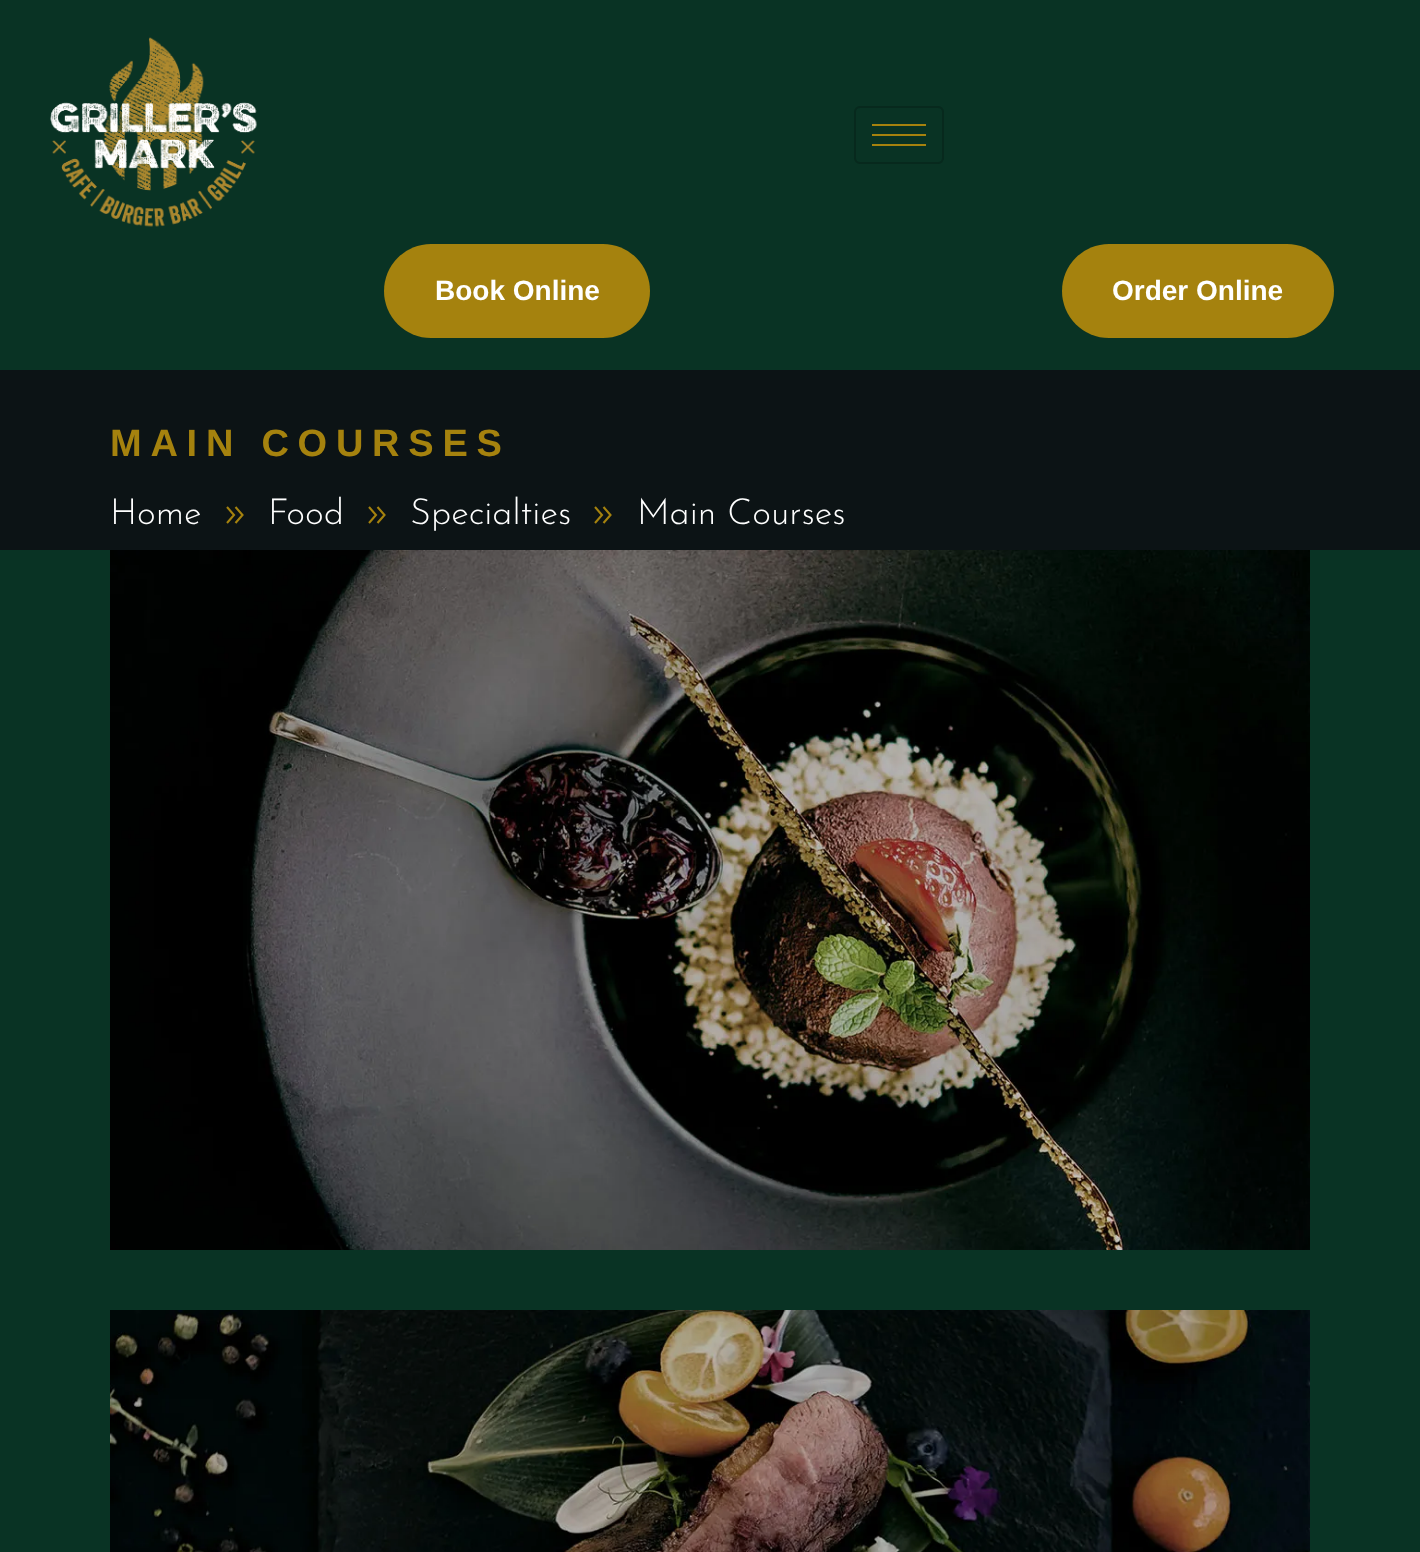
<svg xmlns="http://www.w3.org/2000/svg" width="1420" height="1552">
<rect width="100%" height="100%" fill="#093324"/>
<image x="50" y="37" width="207" height="190" href="media/1.png"/>
<rect x="855" y="107" width="88" height="56" rx="5" fill="none" stroke="#07291d" stroke-width="2"/>
<rect x="872" y="124" width="54" height="2" fill="#a5820e"/>
<rect x="872" y="134" width="54" height="2" fill="#a5820e"/>
<rect x="872" y="144" width="54" height="2" fill="#a5820e"/>
<rect x="384" y="244" width="266" height="94" rx="47" fill="#a5820e"/>
<text x="435" y="300" style="font-family:Liberation Sans;font-size:28px;font-weight:bold;fill:#fff">Book Online</text>
<rect x="1062" y="244" width="272" height="94" rx="47" fill="#a5820e"/>
<text x="1112" y="300" style="font-family:Liberation Sans;font-size:28px;font-weight:bold;fill:#fff">Order Online</text>
<rect y="370" width="1420" height="180" fill="#0c1315"/>
<text x="110" y="456" style="font-family:Liberation Sans;font-size:38px;font-weight:bold;letter-spacing:8.75px;fill:#a5820e">MAIN COURSES</text>
<text x="110" y="524" style="font-family:Josefin Sans;font-size:36px;font-weight:300;fill:#fff">Home</text>
<path d="M227 507l7 8l-7 8m8.5-16l7 8l-7 8" fill="none" stroke="#a5820e" stroke-width="2.1"/>
<text x="268" y="524" style="font-family:Josefin Sans;font-size:36px;font-weight:300;fill:#fff">Food</text>
<path d="M369 507l7 8l-7 8m8.5-16l7 8l-7 8" fill="none" stroke="#a5820e" stroke-width="2.1"/>
<text x="410" y="524" style="font-family:Josefin Sans;font-size:36px;font-weight:300;fill:#fff">Specialties</text>
<path d="M595 507l7 8l-7 8m8.5-16l7 8l-7 8" fill="none" stroke="#a5820e" stroke-width="2.1"/>
<text x="637" y="524" style="font-family:Josefin Sans;font-size:36px;font-weight:300;fill:#fff">Main Courses</text>
<image x="110" y="550" width="1200" height="700" href="media/2.png"/>
<image x="110" y="1310" width="1200" height="242" href="media/3.png"/>
</svg>
